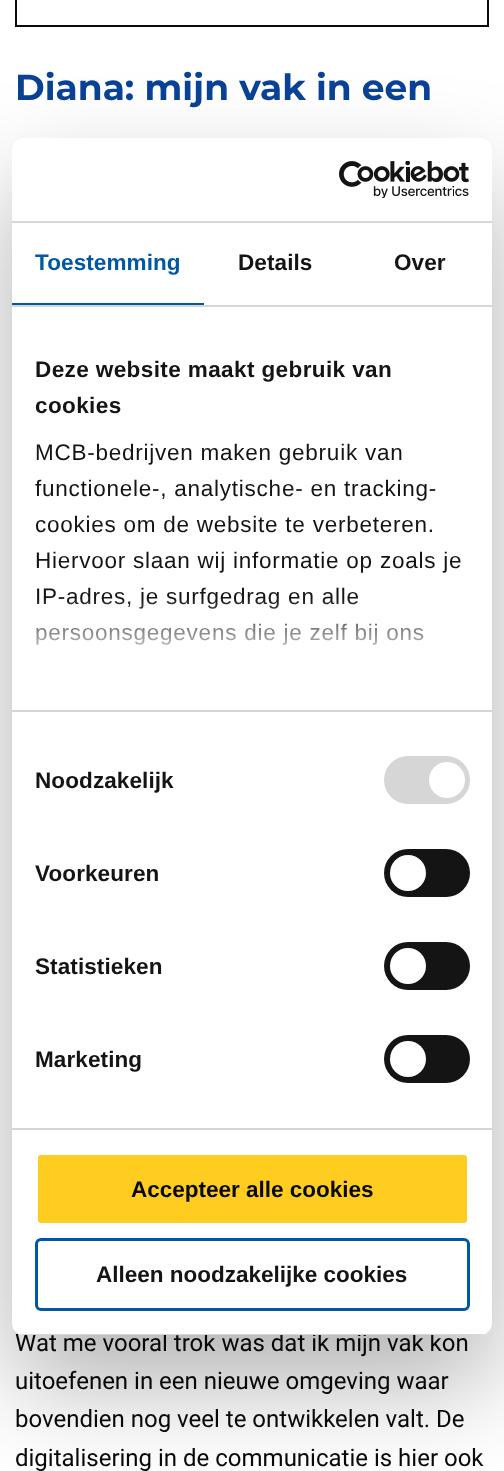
<svg xmlns="http://www.w3.org/2000/svg" width="504" height="1471">
<defs>
<linearGradient id="g1" gradientUnits="userSpaceOnUse" x1="242" y1="710" x2="242" y2="597"><stop offset="0" stop-color="#fff"/><stop offset="0.5" stop-color="#fff" stop-opacity="0.8"/><stop offset="1" stop-color="#fff" stop-opacity="0"/></linearGradient>
<clipPath id="clip1"><rect x="12" y="138" width="480" height="1197" rx="12"/></clipPath>
</defs>
<rect width="100%" height="100%" fill="#fff"/>
<rect x="16" y="-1" width="472" height="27" fill="none" stroke="#0a0a0a" stroke-width="2"/>
<text x="15" y="100" style="font-family:Montserrat;font-size:36px;font-weight:bold;fill:#0a4297">Diana: mijn vak in een</text>
<text x="15" y="1351" style="font-family:Roboto;font-size:24px;fill:#0a0a0a">Wat me vooral trok was dat ik mijn vak kon</text>
<text x="15" y="1389" style="font-family:Roboto;font-size:24px;fill:#0a0a0a">uitoefenen in een nieuwe omgeving waar</text>
<text x="15" y="1427" style="font-family:Roboto;font-size:24px;fill:#0a0a0a">bovendien nog veel te ontwikkelen valt. De</text>
<text x="15" y="1466" style="font-family:Roboto;font-size:24px;fill:#0a0a0a">digitalisering in de communicatie is hier ook</text>
<rect x="12" y="186" width="480" height="1197" rx="12" fill="#0000004d" filter="blur(51px)"/>
<rect x="12" y="138" width="480" height="1197" rx="12" fill="#fff"/>
<rect x="12" y="221" width="480" height="2" fill="#d6d6d6"/>
<image x="339" y="161" width="130" height="37" href="media/1.png"/>
<rect x="12" y="305" width="480" height="2" fill="#d6d6d6"/>
<rect x="12" y="303" width="192" height="2" fill="#0058a2"/>
<text x="35" y="270" style="font-family:Liberation Sans;font-size:22.5px;font-weight:bold;letter-spacing:0.1px;fill:#0058a2">Toestemming</text>
<text x="238" y="270" style="font-family:Liberation Sans;font-size:22.5px;font-weight:bold;letter-spacing:0.1px;fill:#141414">Details</text>
<text x="394" y="270" style="font-family:Liberation Sans;font-size:22.5px;font-weight:bold;letter-spacing:0.1px;fill:#141414">Over</text>
<rect x="12" y="710" width="480" height="2" fill="#d6d6d6"/>
<text x="35" y="377" style="font-family:Liberation Sans;font-size:22.5px;font-weight:bold;letter-spacing:0.4px;fill:#141414">Deze website maakt gebruik van</text>
<text x="35" y="413" style="font-family:Liberation Sans;font-size:22.5px;font-weight:bold;letter-spacing:0.4px;fill:#141414">cookies</text>
<text x="35" y="460" style="font-family:Liberation Sans;font-size:22.5px;letter-spacing:0.75px;fill:#141414">MCB-bedrijven maken gebruik van</text>
<text x="35" y="496" style="font-family:Liberation Sans;font-size:22.5px;letter-spacing:0.75px;fill:#141414">functionele-, analytische- en tracking-</text>
<text x="35" y="532" style="font-family:Liberation Sans;font-size:22.5px;letter-spacing:0.75px;fill:#141414">cookies om de website te verbeteren.</text>
<text x="35" y="568" style="font-family:Liberation Sans;font-size:22.5px;letter-spacing:0.75px;fill:#141414">Hiervoor slaan wij informatie op zoals je</text>
<text x="35" y="604" style="font-family:Liberation Sans;font-size:22.5px;letter-spacing:0.75px;fill:#141414">IP-adres, je surfgedrag en alle</text>
<text x="35" y="640" style="font-family:Liberation Sans;font-size:22.5px;letter-spacing:0.75px;fill:#141414">persoonsgegevens die je zelf bij ons</text>
<rect x="35" y="599" width="388" height="46" fill="url(#g1)"/>
<rect x="12" y="1128" width="480" height="2" fill="#d6d6d6"/>
<text x="35" y="788" style="font-family:Liberation Sans;font-size:22.5px;font-weight:bold;letter-spacing:0.1px;fill:#141414">Noodzakelijk</text>
<rect x="384" y="756" width="86" height="48" rx="24" fill="#d6d6d6"/>
<circle cx="447" cy="780" r="18" fill="#fff"/>
<text x="35" y="881" style="font-family:Liberation Sans;font-size:22.5px;font-weight:bold;letter-spacing:0.1px;fill:#141414">Voorkeuren</text>
<rect x="384" y="849" width="86" height="48" rx="24" fill="#141414"/>
<circle cx="408" cy="873" r="18" fill="#fff"/>
<text x="35" y="974" style="font-family:Liberation Sans;font-size:22.5px;font-weight:bold;letter-spacing:0.1px;fill:#141414">Statistieken</text>
<rect x="384" y="942" width="86" height="48" rx="24" fill="#141414"/>
<circle cx="408" cy="966" r="18" fill="#fff"/>
<text x="35" y="1067" style="font-family:Liberation Sans;font-size:22.5px;font-weight:bold;letter-spacing:0.1px;fill:#141414">Marketing</text>
<rect x="384" y="1035" width="86" height="48" rx="24" fill="#141414"/>
<circle cx="408" cy="1059" r="18" fill="#fff"/>
<g clip-path="url(#clip1)">
<rect x="12" y="1334" width="480" height="1" fill="#d6d6d6"/>
</g>
<rect x="36.5" y="1153.5" width="432" height="71" rx="4.5" fill="#ffcc20" stroke="#fff" stroke-width="3"/>
<text x="131" y="1197" style="font-family:Liberation Sans;font-size:22.5px;font-weight:bold;fill:#0a0a0a">Accepteer alle cookies</text>
<rect x="36.5" y="1239.5" width="432" height="70" rx="4.5" fill="none" stroke="#0058a2" stroke-width="3"/>
<text x="96" y="1282" style="font-family:Liberation Sans;font-size:22.5px;font-weight:bold;fill:#141414">Alleen noodzakelijke cookies</text>
</svg>
